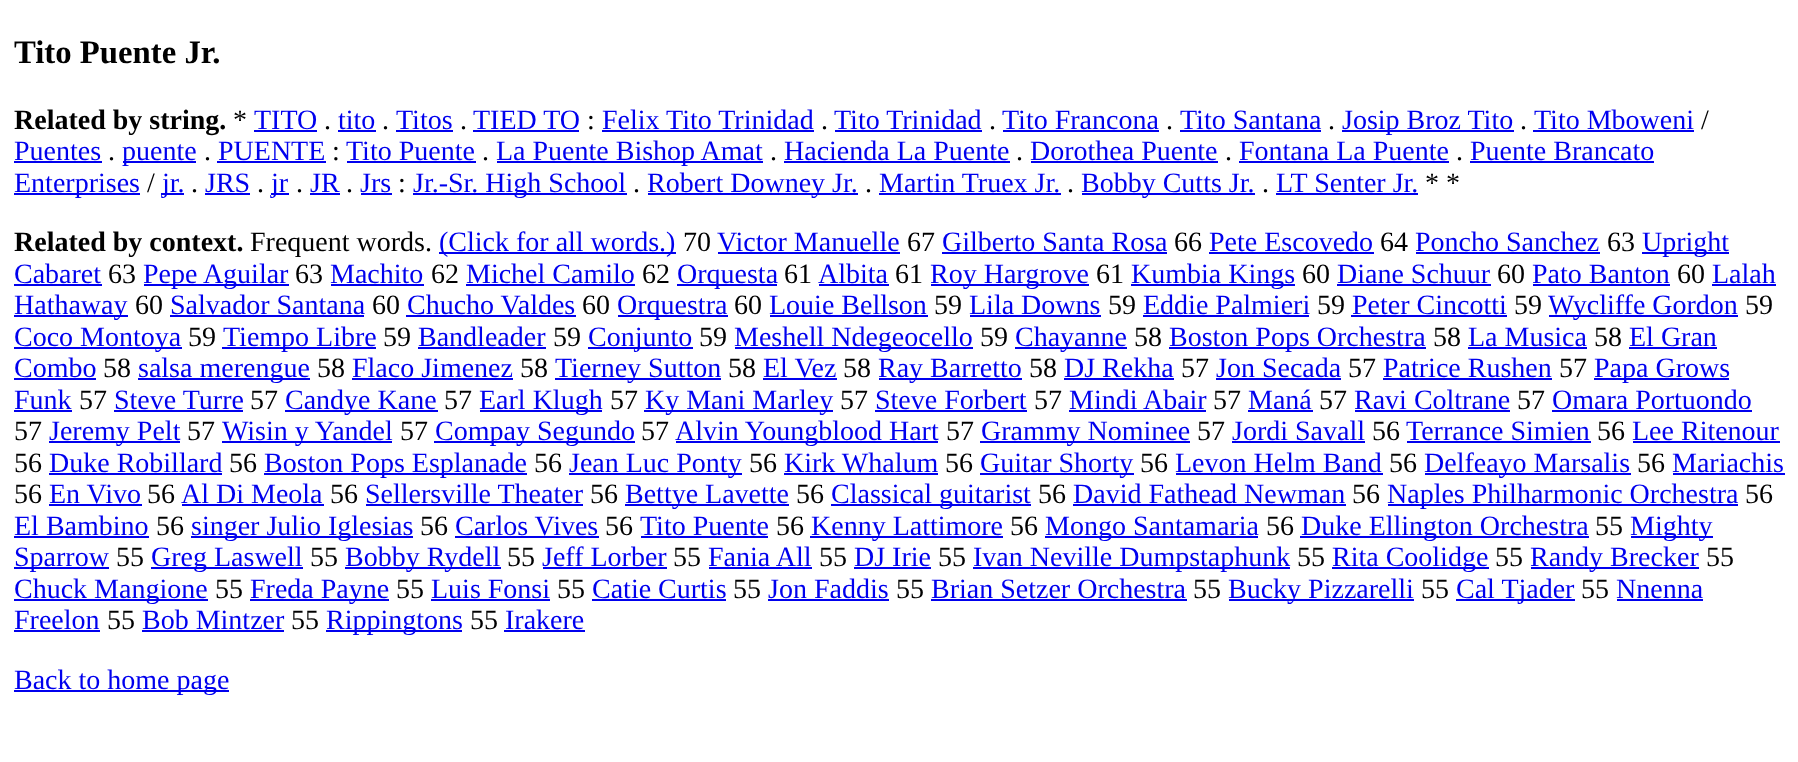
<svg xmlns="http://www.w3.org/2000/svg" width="1798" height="762">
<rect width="100%" height="100%" fill="#fff"/>
<text x="14" y="63" style="font-family:Liberation Serif;font-size:32.75px;font-weight:bold;fill:#000">Tito Puente Jr.</text>
<text x="14" y="129" style="font-family:Liberation Serif;font-size:28px;font-weight:bold;fill:#000">Related by string.</text>
<text x="233" y="129" style="font-family:Liberation Serif;font-size:28px;fill:#000">*</text>
<text x="254" y="129" style="font-family:Liberation Serif;font-size:28px;fill:#00e">TITO</text>
<rect x="254" y="130" width="63" height="2" fill="#00e"/>
<text x="324" y="129" style="font-family:Liberation Serif;font-size:28px;fill:#000">.</text>
<text x="338" y="129" style="font-family:Liberation Serif;font-size:28px;fill:#00e">tito</text>
<rect x="338" y="130" width="38" height="2" fill="#00e"/>
<text x="382" y="129" style="font-family:Liberation Serif;font-size:28px;fill:#000">.</text>
<text x="396" y="129" style="font-family:Liberation Serif;font-size:28px;fill:#00e">Titos</text>
<rect x="396" y="130" width="57" height="2" fill="#00e"/>
<text x="460" y="129" style="font-family:Liberation Serif;font-size:28px;fill:#000">.</text>
<text x="473" y="129" style="font-family:Liberation Serif;font-size:28px;fill:#00e">TIED TO</text>
<rect x="473" y="130" width="106" height="2" fill="#00e"/>
<text x="587" y="129" style="font-family:Liberation Serif;font-size:28px;fill:#000">:</text>
<text x="602" y="129" style="font-family:Liberation Serif;font-size:28px;fill:#00e">Felix Tito Trinidad</text>
<rect x="602" y="130" width="212" height="2" fill="#00e"/>
<text x="821" y="129" style="font-family:Liberation Serif;font-size:28px;fill:#000">.</text>
<text x="834" y="129" style="font-family:Liberation Serif;font-size:28px;fill:#00e">Tito Trinidad</text>
<rect x="835" y="130" width="147" height="2" fill="#00e"/>
<text x="989" y="129" style="font-family:Liberation Serif;font-size:28px;fill:#000">.</text>
<text x="1002" y="129" style="font-family:Liberation Serif;font-size:28px;fill:#00e">Tito Francona</text>
<rect x="1003" y="130" width="156" height="2" fill="#00e"/>
<text x="1166" y="129" style="font-family:Liberation Serif;font-size:28px;fill:#000">.</text>
<text x="1180" y="129" style="font-family:Liberation Serif;font-size:28px;fill:#00e">Tito Santana</text>
<rect x="1180" y="130" width="141" height="2" fill="#00e"/>
<text x="1328" y="129" style="font-family:Liberation Serif;font-size:28px;fill:#000">.</text>
<rect x="1342" y="130" width="172" height="2" fill="#00e"/>
<text x="1342" y="129" style="font-family:Liberation Serif;font-size:28px;fill:#00e">Josip Broz Tito</text>
<text x="1520" y="129" style="font-family:Liberation Serif;font-size:28px;fill:#000">.</text>
<text x="1534" y="129" style="font-family:Liberation Serif;font-size:28px;fill:#00e">Tito Mboweni</text>
<rect x="1533" y="130" width="161" height="2" fill="#00e"/>
<text x="1701" y="129" style="font-family:Liberation Serif;font-size:28px;fill:#000">/</text>
<text x="14" y="160" style="font-family:Liberation Serif;font-size:28px;fill:#00e">Puentes</text>
<rect x="14" y="161" width="88" height="2" fill="#00e"/>
<text x="108" y="160" style="font-family:Liberation Serif;font-size:28px;fill:#000">.</text>
<rect x="123" y="161" width="73" height="2" fill="#00e"/>
<text x="122" y="160" style="font-family:Liberation Serif;font-size:28px;fill:#00e">puente</text>
<text x="204" y="160" style="font-family:Liberation Serif;font-size:28px;fill:#000">.</text>
<text x="218" y="160" style="font-family:Liberation Serif;font-size:28px;fill:#00e">PUENTE</text>
<rect x="217" y="161" width="109" height="2" fill="#00e"/>
<text x="332" y="160" style="font-family:Liberation Serif;font-size:28px;fill:#000">:</text>
<text x="346" y="160" style="font-family:Liberation Serif;font-size:28px;fill:#00e">Tito Puente</text>
<rect x="347" y="161" width="129" height="2" fill="#00e"/>
<text x="482" y="160" style="font-family:Liberation Serif;font-size:28px;fill:#000">.</text>
<rect x="497" y="161" width="266" height="2" fill="#00e"/>
<text x="496" y="160" style="font-family:Liberation Serif;font-size:28px;fill:#00e">La Puente Bishop Amat</text>
<text x="770" y="160" style="font-family:Liberation Serif;font-size:28px;fill:#000">.</text>
<text x="784" y="160" style="font-family:Liberation Serif;font-size:28px;fill:#00e">Hacienda La Puente</text>
<rect x="784" y="161" width="226" height="2" fill="#00e"/>
<text x="1016" y="160" style="font-family:Liberation Serif;font-size:28px;fill:#000">.</text>
<text x="1030" y="160" style="font-family:Liberation Serif;font-size:28px;fill:#00e">Dorothea Puente</text>
<rect x="1031" y="161" width="187" height="2" fill="#00e"/>
<text x="1225" y="160" style="font-family:Liberation Serif;font-size:28px;fill:#000">.</text>
<text x="1239" y="160" style="font-family:Liberation Serif;font-size:28px;fill:#00e">Fontana La Puente</text>
<rect x="1239" y="161" width="210" height="2" fill="#00e"/>
<text x="1456" y="160" style="font-family:Liberation Serif;font-size:28px;fill:#000">.</text>
<text x="1470" y="160" style="font-family:Liberation Serif;font-size:28px;fill:#00e">Puente Brancato</text>
<rect x="1470" y="161" width="184" height="2" fill="#00e"/>
<rect x="14" y="193" width="126" height="2" fill="#00e"/>
<text x="14" y="192" style="font-family:Liberation Serif;font-size:28px;fill:#00e">Enterprises</text>
<text x="147" y="192" style="font-family:Liberation Serif;font-size:28px;fill:#000">/</text>
<rect x="161" y="193" width="23" height="2" fill="#00e"/>
<text x="162" y="192" style="font-family:Liberation Serif;font-size:28px;fill:#00e">jr.</text>
<text x="191" y="192" style="font-family:Liberation Serif;font-size:28px;fill:#000">.</text>
<text x="205" y="192" style="font-family:Liberation Serif;font-size:28px;fill:#00e">JRS</text>
<rect x="205" y="193" width="45" height="2" fill="#00e"/>
<text x="257" y="192" style="font-family:Liberation Serif;font-size:28px;fill:#000">.</text>
<rect x="271" y="193" width="18" height="2" fill="#00e"/>
<text x="271" y="192" style="font-family:Liberation Serif;font-size:28px;fill:#00e">jr</text>
<text x="296" y="192" style="font-family:Liberation Serif;font-size:28px;fill:#000">.</text>
<text x="310" y="192" style="font-family:Liberation Serif;font-size:28px;fill:#00e">JR</text>
<rect x="310" y="193" width="30" height="2" fill="#00e"/>
<text x="346" y="192" style="font-family:Liberation Serif;font-size:28px;fill:#000">.</text>
<text x="360" y="192" style="font-family:Liberation Serif;font-size:28px;fill:#00e">Jrs</text>
<rect x="361" y="193" width="31" height="2" fill="#00e"/>
<text x="398" y="192" style="font-family:Liberation Serif;font-size:28px;fill:#000">:</text>
<rect x="413" y="193" width="214" height="2" fill="#00e"/>
<text x="413" y="192" style="font-family:Liberation Serif;font-size:28px;fill:#00e">Jr.-Sr. High School</text>
<text x="633" y="192" style="font-family:Liberation Serif;font-size:28px;fill:#000">.</text>
<rect x="648" y="193" width="210" height="2" fill="#00e"/>
<text x="647" y="192" style="font-family:Liberation Serif;font-size:28px;fill:#00e">Robert Downey Jr.</text>
<text x="865" y="192" style="font-family:Liberation Serif;font-size:28px;fill:#000">.</text>
<text x="879" y="192" style="font-family:Liberation Serif;font-size:28px;fill:#00e">Martin Truex Jr.</text>
<rect x="879" y="193" width="182" height="2" fill="#00e"/>
<text x="1067" y="192" style="font-family:Liberation Serif;font-size:28px;fill:#000">.</text>
<rect x="1082" y="193" width="173" height="2" fill="#00e"/>
<text x="1081" y="192" style="font-family:Liberation Serif;font-size:28px;fill:#00e">Bobby Cutts Jr.</text>
<text x="1262" y="192" style="font-family:Liberation Serif;font-size:28px;fill:#000">.</text>
<text x="1276" y="192" style="font-family:Liberation Serif;font-size:28px;fill:#00e">LT Senter Jr.</text>
<rect x="1276" y="193" width="142" height="2" fill="#00e"/>
<text x="1425" y="192" style="font-family:Liberation Serif;font-size:28px;fill:#000">* *</text>
<text x="14" y="251" style="font-family:Liberation Serif;font-size:28px;font-weight:bold;fill:#000">Related by context.</text>
<text x="250" y="251" style="font-family:Liberation Serif;font-size:28px;fill:#000">Frequent words.</text>
<rect x="439" y="252" width="237" height="2" fill="#00e"/>
<text x="439" y="251" style="font-family:Liberation Serif;font-size:28px;fill:#00e">(Click for all words.)</text>
<text x="683" y="251" style="font-family:Liberation Serif;font-size:28px;fill:#000">70</text>
<text x="717" y="251" style="font-family:Liberation Serif;font-size:28px;fill:#00e">Victor Manuelle</text>
<rect x="718" y="252" width="182" height="2" fill="#00e"/>
<text x="907" y="251" style="font-family:Liberation Serif;font-size:28px;fill:#000">67</text>
<text x="942" y="251" style="font-family:Liberation Serif;font-size:28px;fill:#00e">Gilberto Santa Rosa</text>
<rect x="942" y="252" width="225" height="2" fill="#00e"/>
<text x="1174" y="251" style="font-family:Liberation Serif;font-size:28px;fill:#000">66</text>
<text x="1209" y="251" style="font-family:Liberation Serif;font-size:28px;fill:#00e">Pete Escovedo</text>
<rect x="1209" y="252" width="165" height="2" fill="#00e"/>
<text x="1380" y="251" style="font-family:Liberation Serif;font-size:28px;fill:#000">64</text>
<text x="1415" y="251" style="font-family:Liberation Serif;font-size:28px;fill:#00e">Poncho Sanchez</text>
<rect x="1416" y="252" width="184" height="2" fill="#00e"/>
<text x="1607" y="251" style="font-family:Liberation Serif;font-size:28px;fill:#000">63</text>
<rect x="1642" y="252" width="87" height="2" fill="#00e"/>
<text x="1642" y="251" style="font-family:Liberation Serif;font-size:28px;fill:#00e">Upright</text>
<text x="14" y="283" style="font-family:Liberation Serif;font-size:28px;fill:#00e">Cabaret</text>
<rect x="14" y="284" width="88" height="2" fill="#00e"/>
<text x="108" y="283" style="font-family:Liberation Serif;font-size:28px;fill:#000">63</text>
<rect x="144" y="284" width="145" height="2" fill="#00e"/>
<text x="143" y="283" style="font-family:Liberation Serif;font-size:28px;fill:#00e">Pepe Aguilar</text>
<text x="295" y="283" style="font-family:Liberation Serif;font-size:28px;fill:#000">63</text>
<text x="330" y="283" style="font-family:Liberation Serif;font-size:28px;fill:#00e">Machito</text>
<rect x="331" y="284" width="93" height="2" fill="#00e"/>
<text x="431" y="283" style="font-family:Liberation Serif;font-size:28px;fill:#000">62</text>
<text x="466" y="283" style="font-family:Liberation Serif;font-size:28px;fill:#00e">Michel Camilo</text>
<rect x="466" y="284" width="169" height="2" fill="#00e"/>
<text x="642" y="283" style="font-family:Liberation Serif;font-size:28px;fill:#000">62</text>
<rect x="677" y="284" width="100" height="2" fill="#00e"/>
<text x="677" y="283" style="font-family:Liberation Serif;font-size:28px;fill:#00e">Orquesta</text>
<text x="784" y="283" style="font-family:Liberation Serif;font-size:28px;fill:#000">61</text>
<text x="818" y="283" style="font-family:Liberation Serif;font-size:28px;fill:#00e">Albita</text>
<rect x="819" y="284" width="70" height="2" fill="#00e"/>
<text x="895" y="283" style="font-family:Liberation Serif;font-size:28px;fill:#000">61</text>
<rect x="931" y="284" width="158" height="2" fill="#00e"/>
<text x="930" y="283" style="font-family:Liberation Serif;font-size:28px;fill:#00e">Roy Hargrove</text>
<text x="1096" y="283" style="font-family:Liberation Serif;font-size:28px;fill:#000">61</text>
<rect x="1131" y="284" width="164" height="2" fill="#00e"/>
<text x="1131" y="283" style="font-family:Liberation Serif;font-size:28px;fill:#00e">Kumbia Kings</text>
<text x="1302" y="283" style="font-family:Liberation Serif;font-size:28px;fill:#000">60</text>
<text x="1337" y="283" style="font-family:Liberation Serif;font-size:28px;fill:#00e">Diane Schuur</text>
<rect x="1337" y="284" width="154" height="2" fill="#00e"/>
<text x="1497" y="283" style="font-family:Liberation Serif;font-size:28px;fill:#000">60</text>
<text x="1532" y="283" style="font-family:Liberation Serif;font-size:28px;fill:#00e">Pato Banton</text>
<rect x="1533" y="284" width="137" height="2" fill="#00e"/>
<text x="1677" y="283" style="font-family:Liberation Serif;font-size:28px;fill:#000">60</text>
<text x="1712" y="283" style="font-family:Liberation Serif;font-size:28px;fill:#00e">Lalah</text>
<rect x="1712" y="284" width="64" height="2" fill="#00e"/>
<rect x="14" y="315" width="114" height="2" fill="#00e"/>
<text x="14" y="314" style="font-family:Liberation Serif;font-size:28px;fill:#00e">Hathaway</text>
<text x="135" y="314" style="font-family:Liberation Serif;font-size:28px;fill:#000">60</text>
<text x="170" y="314" style="font-family:Liberation Serif;font-size:28px;fill:#00e">Salvador Santana</text>
<rect x="170" y="315" width="194" height="2" fill="#00e"/>
<text x="372" y="314" style="font-family:Liberation Serif;font-size:28px;fill:#000">60</text>
<text x="407" y="314" style="font-family:Liberation Serif;font-size:28px;fill:#00e">Chucho Valdes</text>
<rect x="406" y="315" width="170" height="2" fill="#00e"/>
<text x="582" y="314" style="font-family:Liberation Serif;font-size:28px;fill:#000">60</text>
<rect x="618" y="315" width="110" height="2" fill="#00e"/>
<text x="617" y="314" style="font-family:Liberation Serif;font-size:28px;fill:#00e">Orquestra</text>
<text x="734" y="314" style="font-family:Liberation Serif;font-size:28px;fill:#000">60</text>
<text x="769" y="314" style="font-family:Liberation Serif;font-size:28px;fill:#00e">Louie Bellson</text>
<rect x="770" y="315" width="158" height="2" fill="#00e"/>
<text x="934" y="314" style="font-family:Liberation Serif;font-size:28px;fill:#000">59</text>
<text x="969" y="314" style="font-family:Liberation Serif;font-size:28px;fill:#00e">Lila Downs</text>
<rect x="970" y="315" width="131" height="2" fill="#00e"/>
<text x="1108" y="314" style="font-family:Liberation Serif;font-size:28px;fill:#000">59</text>
<text x="1143" y="314" style="font-family:Liberation Serif;font-size:28px;fill:#00e">Eddie Palmieri</text>
<rect x="1143" y="315" width="166" height="2" fill="#00e"/>
<text x="1317" y="314" style="font-family:Liberation Serif;font-size:28px;fill:#000">59</text>
<text x="1352" y="314" style="font-family:Liberation Serif;font-size:28px;fill:#00e">Peter Cincotti</text>
<rect x="1351" y="315" width="156" height="2" fill="#00e"/>
<text x="1514" y="314" style="font-family:Liberation Serif;font-size:28px;fill:#000">59</text>
<rect x="1549" y="315" width="189" height="2" fill="#00e"/>
<text x="1548" y="314" style="font-family:Liberation Serif;font-size:28px;fill:#00e">Wycliffe Gordon</text>
<text x="1745" y="314" style="font-family:Liberation Serif;font-size:28px;fill:#000">59</text>
<rect x="14" y="347" width="168" height="2" fill="#00e"/>
<text x="14" y="346" style="font-family:Liberation Serif;font-size:28px;fill:#00e">Coco Montoya</text>
<text x="188" y="346" style="font-family:Liberation Serif;font-size:28px;fill:#000">59</text>
<rect x="222" y="347" width="154" height="2" fill="#00e"/>
<text x="223" y="346" style="font-family:Liberation Serif;font-size:28px;fill:#00e">Tiempo Libre</text>
<text x="383" y="346" style="font-family:Liberation Serif;font-size:28px;fill:#000">59</text>
<text x="418" y="346" style="font-family:Liberation Serif;font-size:28px;fill:#00e">Bandleader</text>
<rect x="418" y="347" width="128" height="2" fill="#00e"/>
<text x="553" y="346" style="font-family:Liberation Serif;font-size:28px;fill:#000">59</text>
<rect x="588" y="347" width="105" height="2" fill="#00e"/>
<text x="588" y="346" style="font-family:Liberation Serif;font-size:28px;fill:#00e">Conjunto</text>
<text x="699" y="346" style="font-family:Liberation Serif;font-size:28px;fill:#000">59</text>
<rect x="735" y="347" width="238" height="2" fill="#00e"/>
<text x="734" y="346" style="font-family:Liberation Serif;font-size:28px;fill:#00e">Meshell Ndegeocello</text>
<text x="980" y="346" style="font-family:Liberation Serif;font-size:28px;fill:#000">59</text>
<rect x="1015" y="347" width="112" height="2" fill="#00e"/>
<text x="1015" y="346" style="font-family:Liberation Serif;font-size:28px;fill:#00e">Chayanne</text>
<text x="1134" y="346" style="font-family:Liberation Serif;font-size:28px;fill:#000">58</text>
<rect x="1169" y="347" width="257" height="2" fill="#00e"/>
<text x="1169" y="346" style="font-family:Liberation Serif;font-size:28px;fill:#00e">Boston Pops Orchestra</text>
<text x="1433" y="346" style="font-family:Liberation Serif;font-size:28px;fill:#000">58</text>
<text x="1468" y="346" style="font-family:Liberation Serif;font-size:28px;fill:#00e">La Musica</text>
<rect x="1468" y="347" width="119" height="2" fill="#00e"/>
<text x="1594" y="346" style="font-family:Liberation Serif;font-size:28px;fill:#000">58</text>
<text x="1629" y="346" style="font-family:Liberation Serif;font-size:28px;fill:#00e">El Gran</text>
<rect x="1629" y="347" width="88" height="2" fill="#00e"/>
<text x="14" y="377" style="font-family:Liberation Serif;font-size:28px;fill:#00e">Combo</text>
<rect x="14" y="378" width="82" height="2" fill="#00e"/>
<text x="103" y="377" style="font-family:Liberation Serif;font-size:28px;fill:#000">58</text>
<rect x="138" y="378" width="172" height="2" fill="#00e"/>
<text x="138" y="377" style="font-family:Liberation Serif;font-size:28px;fill:#00e">salsa merengue</text>
<text x="317" y="377" style="font-family:Liberation Serif;font-size:28px;fill:#000">58</text>
<text x="352" y="377" style="font-family:Liberation Serif;font-size:28px;fill:#00e">Flaco Jimenez</text>
<rect x="352" y="378" width="161" height="2" fill="#00e"/>
<text x="520" y="377" style="font-family:Liberation Serif;font-size:28px;fill:#000">58</text>
<rect x="555" y="378" width="166" height="2" fill="#00e"/>
<text x="555" y="377" style="font-family:Liberation Serif;font-size:28px;fill:#00e">Tierney Sutton</text>
<text x="728" y="377" style="font-family:Liberation Serif;font-size:28px;fill:#000">58</text>
<text x="763" y="377" style="font-family:Liberation Serif;font-size:28px;fill:#00e">El Vez</text>
<rect x="763" y="378" width="74" height="2" fill="#00e"/>
<text x="843" y="377" style="font-family:Liberation Serif;font-size:28px;fill:#000">58</text>
<rect x="879" y="378" width="143" height="2" fill="#00e"/>
<text x="878" y="377" style="font-family:Liberation Serif;font-size:28px;fill:#00e">Ray Barretto</text>
<text x="1029" y="377" style="font-family:Liberation Serif;font-size:28px;fill:#000">58</text>
<text x="1064" y="377" style="font-family:Liberation Serif;font-size:28px;fill:#00e">DJ Rekha</text>
<rect x="1064" y="378" width="110" height="2" fill="#00e"/>
<text x="1181" y="377" style="font-family:Liberation Serif;font-size:28px;fill:#000">57</text>
<text x="1216" y="377" style="font-family:Liberation Serif;font-size:28px;fill:#00e">Jon Secada</text>
<rect x="1216" y="378" width="125" height="2" fill="#00e"/>
<text x="1348" y="377" style="font-family:Liberation Serif;font-size:28px;fill:#000">57</text>
<text x="1383" y="377" style="font-family:Liberation Serif;font-size:28px;fill:#00e">Patrice Rushen</text>
<rect x="1383" y="378" width="169" height="2" fill="#00e"/>
<text x="1559" y="377" style="font-family:Liberation Serif;font-size:28px;fill:#000">57</text>
<rect x="1594" y="378" width="135" height="2" fill="#00e"/>
<text x="1594" y="377" style="font-family:Liberation Serif;font-size:28px;fill:#00e">Papa Grows</text>
<text x="14" y="409" style="font-family:Liberation Serif;font-size:28px;fill:#00e">Funk</text>
<rect x="14" y="410" width="58" height="2" fill="#00e"/>
<text x="79" y="409" style="font-family:Liberation Serif;font-size:28px;fill:#000">57</text>
<text x="114" y="409" style="font-family:Liberation Serif;font-size:28px;fill:#00e">Steve Turre</text>
<rect x="114" y="410" width="129" height="2" fill="#00e"/>
<text x="250" y="409" style="font-family:Liberation Serif;font-size:28px;fill:#000">57</text>
<rect x="285" y="410" width="153" height="2" fill="#00e"/>
<text x="285" y="409" style="font-family:Liberation Serif;font-size:28px;fill:#00e">Candye Kane</text>
<text x="444" y="409" style="font-family:Liberation Serif;font-size:28px;fill:#000">57</text>
<rect x="480" y="410" width="122" height="2" fill="#00e"/>
<text x="479" y="409" style="font-family:Liberation Serif;font-size:28px;fill:#00e">Earl Klugh</text>
<text x="610" y="409" style="font-family:Liberation Serif;font-size:28px;fill:#000">57</text>
<rect x="644" y="410" width="189" height="2" fill="#00e"/>
<text x="645" y="409" style="font-family:Liberation Serif;font-size:28px;fill:#00e">Ky Mani Marley</text>
<text x="840" y="409" style="font-family:Liberation Serif;font-size:28px;fill:#000">57</text>
<text x="875" y="409" style="font-family:Liberation Serif;font-size:28px;fill:#00e">Steve Forbert</text>
<rect x="875" y="410" width="152" height="2" fill="#00e"/>
<text x="1034" y="409" style="font-family:Liberation Serif;font-size:28px;fill:#000">57</text>
<text x="1069" y="409" style="font-family:Liberation Serif;font-size:28px;fill:#00e">Mindi Abair</text>
<rect x="1069" y="410" width="137" height="2" fill="#00e"/>
<text x="1213" y="409" style="font-family:Liberation Serif;font-size:28px;fill:#000">57</text>
<text x="1248" y="409" style="font-family:Liberation Serif;font-size:28px;fill:#00e">Maná</text>
<rect x="1248" y="410" width="65" height="2" fill="#00e"/>
<text x="1319" y="409" style="font-family:Liberation Serif;font-size:28px;fill:#000">57</text>
<text x="1354" y="409" style="font-family:Liberation Serif;font-size:28px;fill:#00e">Ravi Coltrane</text>
<rect x="1355" y="410" width="155" height="2" fill="#00e"/>
<text x="1517" y="409" style="font-family:Liberation Serif;font-size:28px;fill:#000">57</text>
<text x="1552" y="409" style="font-family:Liberation Serif;font-size:28px;fill:#00e">Omara Portuondo</text>
<rect x="1552" y="410" width="200" height="2" fill="#00e"/>
<text x="14" y="440" style="font-family:Liberation Serif;font-size:28px;fill:#000">57</text>
<rect x="49" y="441" width="131" height="2" fill="#00e"/>
<text x="49" y="440" style="font-family:Liberation Serif;font-size:28px;fill:#00e">Jeremy Pelt</text>
<text x="187" y="440" style="font-family:Liberation Serif;font-size:28px;fill:#000">57</text>
<rect x="222" y="441" width="170" height="2" fill="#00e"/>
<text x="222" y="440" style="font-family:Liberation Serif;font-size:28px;fill:#00e">Wisin y Yandel</text>
<text x="400" y="440" style="font-family:Liberation Serif;font-size:28px;fill:#000">57</text>
<rect x="434" y="441" width="201" height="2" fill="#00e"/>
<text x="435" y="440" style="font-family:Liberation Serif;font-size:28px;fill:#00e">Compay Segundo</text>
<text x="641" y="440" style="font-family:Liberation Serif;font-size:28px;fill:#000">57</text>
<rect x="676" y="441" width="262" height="2" fill="#00e"/>
<text x="675" y="440" style="font-family:Liberation Serif;font-size:28px;fill:#00e">Alvin Youngblood Hart</text>
<text x="946" y="440" style="font-family:Liberation Serif;font-size:28px;fill:#000">57</text>
<rect x="980" y="441" width="210" height="2" fill="#00e"/>
<text x="981" y="440" style="font-family:Liberation Serif;font-size:28px;fill:#00e">Grammy Nominee</text>
<text x="1197" y="440" style="font-family:Liberation Serif;font-size:28px;fill:#000">57</text>
<text x="1232" y="440" style="font-family:Liberation Serif;font-size:28px;fill:#00e">Jordi Savall</text>
<rect x="1232" y="441" width="133" height="2" fill="#00e"/>
<text x="1372" y="440" style="font-family:Liberation Serif;font-size:28px;fill:#000">56</text>
<text x="1406" y="440" style="font-family:Liberation Serif;font-size:28px;fill:#00e">Terrance Simien</text>
<rect x="1407" y="441" width="184" height="2" fill="#00e"/>
<text x="1597" y="440" style="font-family:Liberation Serif;font-size:28px;fill:#000">56</text>
<text x="1632" y="440" style="font-family:Liberation Serif;font-size:28px;fill:#00e">Lee Ritenour</text>
<rect x="1633" y="441" width="147" height="2" fill="#00e"/>
<text x="14" y="472" style="font-family:Liberation Serif;font-size:28px;fill:#000">56</text>
<text x="49" y="472" style="font-family:Liberation Serif;font-size:28px;fill:#00e">Duke Robillard</text>
<rect x="49" y="473" width="173" height="2" fill="#00e"/>
<text x="229" y="472" style="font-family:Liberation Serif;font-size:28px;fill:#000">56</text>
<rect x="264" y="473" width="263" height="2" fill="#00e"/>
<text x="264" y="472" style="font-family:Liberation Serif;font-size:28px;fill:#00e">Boston Pops Esplanade</text>
<text x="534" y="472" style="font-family:Liberation Serif;font-size:28px;fill:#000">56</text>
<rect x="569" y="473" width="173" height="2" fill="#00e"/>
<text x="569" y="472" style="font-family:Liberation Serif;font-size:28px;fill:#00e">Jean Luc Ponty</text>
<text x="749" y="472" style="font-family:Liberation Serif;font-size:28px;fill:#000">56</text>
<text x="784" y="472" style="font-family:Liberation Serif;font-size:28px;fill:#00e">Kirk Whalum</text>
<rect x="784" y="473" width="154" height="2" fill="#00e"/>
<text x="945" y="472" style="font-family:Liberation Serif;font-size:28px;fill:#000">56</text>
<rect x="980" y="473" width="154" height="2" fill="#00e"/>
<text x="980" y="472" style="font-family:Liberation Serif;font-size:28px;fill:#00e">Guitar Shorty</text>
<text x="1140" y="472" style="font-family:Liberation Serif;font-size:28px;fill:#000">56</text>
<text x="1175" y="472" style="font-family:Liberation Serif;font-size:28px;fill:#00e">Levon Helm Band</text>
<rect x="1176" y="473" width="207" height="2" fill="#00e"/>
<text x="1389" y="472" style="font-family:Liberation Serif;font-size:28px;fill:#000">56</text>
<rect x="1425" y="473" width="206" height="2" fill="#00e"/>
<text x="1424" y="472" style="font-family:Liberation Serif;font-size:28px;fill:#00e">Delfeayo Marsalis</text>
<text x="1637" y="472" style="font-family:Liberation Serif;font-size:28px;fill:#000">56</text>
<text x="1672" y="472" style="font-family:Liberation Serif;font-size:28px;fill:#00e">Mariachis</text>
<rect x="1673" y="473" width="112" height="2" fill="#00e"/>
<text x="14" y="503" style="font-family:Liberation Serif;font-size:28px;fill:#000">56</text>
<text x="49" y="503" style="font-family:Liberation Serif;font-size:28px;fill:#00e">En Vivo</text>
<rect x="49" y="504" width="93" height="2" fill="#00e"/>
<text x="147" y="503" style="font-family:Liberation Serif;font-size:28px;fill:#000">56</text>
<text x="181" y="503" style="font-family:Liberation Serif;font-size:28px;fill:#00e">Al Di Meola</text>
<rect x="182" y="504" width="142" height="2" fill="#00e"/>
<text x="330" y="503" style="font-family:Liberation Serif;font-size:28px;fill:#000">56</text>
<text x="365" y="503" style="font-family:Liberation Serif;font-size:28px;fill:#00e">Sellersville Theater</text>
<rect x="366" y="504" width="217" height="2" fill="#00e"/>
<text x="590" y="503" style="font-family:Liberation Serif;font-size:28px;fill:#000">56</text>
<rect x="625" y="504" width="164" height="2" fill="#00e"/>
<text x="625" y="503" style="font-family:Liberation Serif;font-size:28px;fill:#00e">Bettye Lavette</text>
<text x="796" y="503" style="font-family:Liberation Serif;font-size:28px;fill:#000">56</text>
<rect x="831" y="504" width="200" height="2" fill="#00e"/>
<text x="831" y="503" style="font-family:Liberation Serif;font-size:28px;fill:#00e">Classical guitarist</text>
<text x="1038" y="503" style="font-family:Liberation Serif;font-size:28px;fill:#000">56</text>
<text x="1073" y="503" style="font-family:Liberation Serif;font-size:28px;fill:#00e">David Fathead Newman</text>
<rect x="1073" y="504" width="273" height="2" fill="#00e"/>
<text x="1352" y="503" style="font-family:Liberation Serif;font-size:28px;fill:#000">56</text>
<rect x="1388" y="504" width="350" height="2" fill="#00e"/>
<text x="1387" y="503" style="font-family:Liberation Serif;font-size:28px;fill:#00e">Naples Philharmonic Orchestra</text>
<text x="1745" y="503" style="font-family:Liberation Serif;font-size:28px;fill:#000">56</text>
<text x="14" y="535" style="font-family:Liberation Serif;font-size:28px;fill:#00e">El Bambino</text>
<rect x="14" y="536" width="135" height="2" fill="#00e"/>
<text x="156" y="535" style="font-family:Liberation Serif;font-size:28px;fill:#000">56</text>
<rect x="191" y="536" width="222" height="2" fill="#00e"/>
<text x="191" y="535" style="font-family:Liberation Serif;font-size:28px;fill:#00e">singer Julio Iglesias</text>
<text x="420" y="535" style="font-family:Liberation Serif;font-size:28px;fill:#000">56</text>
<text x="455" y="535" style="font-family:Liberation Serif;font-size:28px;fill:#00e">Carlos Vives</text>
<rect x="455" y="536" width="144" height="2" fill="#00e"/>
<text x="605" y="535" style="font-family:Liberation Serif;font-size:28px;fill:#000">56</text>
<text x="640" y="535" style="font-family:Liberation Serif;font-size:28px;fill:#00e">Tito Puente</text>
<rect x="641" y="536" width="127" height="2" fill="#00e"/>
<text x="776" y="535" style="font-family:Liberation Serif;font-size:28px;fill:#000">56</text>
<rect x="810" y="536" width="193" height="2" fill="#00e"/>
<text x="811" y="535" style="font-family:Liberation Serif;font-size:28px;fill:#00e">Kenny Lattimore</text>
<text x="1010" y="535" style="font-family:Liberation Serif;font-size:28px;fill:#000">56</text>
<rect x="1045" y="536" width="213" height="2" fill="#00e"/>
<text x="1045" y="535" style="font-family:Liberation Serif;font-size:28px;fill:#00e">Mongo Santamaria</text>
<text x="1266" y="535" style="font-family:Liberation Serif;font-size:28px;fill:#000">56</text>
<rect x="1300" y="536" width="289" height="2" fill="#00e"/>
<text x="1301" y="535" style="font-family:Liberation Serif;font-size:28px;fill:#00e">Duke Ellington Orchestra</text>
<text x="1595" y="535" style="font-family:Liberation Serif;font-size:28px;fill:#000">55</text>
<rect x="1631" y="536" width="82" height="2" fill="#00e"/>
<text x="1630" y="535" style="font-family:Liberation Serif;font-size:28px;fill:#00e">Mighty</text>
<rect x="14" y="567" width="95" height="2" fill="#00e"/>
<text x="14" y="566" style="font-family:Liberation Serif;font-size:28px;fill:#00e">Sparrow</text>
<text x="116" y="566" style="font-family:Liberation Serif;font-size:28px;fill:#000">55</text>
<rect x="151" y="567" width="152" height="2" fill="#00e"/>
<text x="151" y="566" style="font-family:Liberation Serif;font-size:28px;fill:#00e">Greg Laswell</text>
<text x="310" y="566" style="font-family:Liberation Serif;font-size:28px;fill:#000">55</text>
<rect x="345" y="567" width="156" height="2" fill="#00e"/>
<text x="345" y="566" style="font-family:Liberation Serif;font-size:28px;fill:#00e">Bobby Rydell</text>
<text x="507" y="566" style="font-family:Liberation Serif;font-size:28px;fill:#000">55</text>
<text x="542" y="566" style="font-family:Liberation Serif;font-size:28px;fill:#00e">Jeff Lorber</text>
<rect x="543" y="567" width="124" height="2" fill="#00e"/>
<text x="673" y="566" style="font-family:Liberation Serif;font-size:28px;fill:#000">55</text>
<text x="708" y="566" style="font-family:Liberation Serif;font-size:28px;fill:#00e">Fania All</text>
<rect x="709" y="567" width="103" height="2" fill="#00e"/>
<text x="819" y="566" style="font-family:Liberation Serif;font-size:28px;fill:#000">55</text>
<text x="854" y="566" style="font-family:Liberation Serif;font-size:28px;fill:#00e">DJ Irie</text>
<rect x="854" y="567" width="77" height="2" fill="#00e"/>
<text x="938" y="566" style="font-family:Liberation Serif;font-size:28px;fill:#000">55</text>
<rect x="973" y="567" width="317" height="2" fill="#00e"/>
<text x="973" y="566" style="font-family:Liberation Serif;font-size:28px;fill:#00e">Ivan Neville Dumpstaphunk</text>
<text x="1297" y="566" style="font-family:Liberation Serif;font-size:28px;fill:#000">55</text>
<rect x="1332" y="567" width="157" height="2" fill="#00e"/>
<text x="1332" y="566" style="font-family:Liberation Serif;font-size:28px;fill:#00e">Rita Coolidge</text>
<text x="1495" y="566" style="font-family:Liberation Serif;font-size:28px;fill:#000">55</text>
<rect x="1531" y="567" width="168" height="2" fill="#00e"/>
<text x="1530" y="566" style="font-family:Liberation Serif;font-size:28px;fill:#00e">Randy Brecker</text>
<text x="1706" y="566" style="font-family:Liberation Serif;font-size:28px;fill:#000">55</text>
<rect x="14" y="599" width="194" height="2" fill="#00e"/>
<text x="14" y="598" style="font-family:Liberation Serif;font-size:28px;fill:#00e">Chuck Mangione</text>
<text x="215" y="598" style="font-family:Liberation Serif;font-size:28px;fill:#000">55</text>
<rect x="250" y="599" width="139" height="2" fill="#00e"/>
<text x="250" y="598" style="font-family:Liberation Serif;font-size:28px;fill:#00e">Freda Payne</text>
<text x="396" y="598" style="font-family:Liberation Serif;font-size:28px;fill:#000">55</text>
<text x="431" y="598" style="font-family:Liberation Serif;font-size:28px;fill:#00e">Luis Fonsi</text>
<rect x="431" y="599" width="119" height="2" fill="#00e"/>
<text x="557" y="598" style="font-family:Liberation Serif;font-size:28px;fill:#000">55</text>
<text x="592" y="598" style="font-family:Liberation Serif;font-size:28px;fill:#00e">Catie Curtis</text>
<rect x="592" y="599" width="134" height="2" fill="#00e"/>
<text x="733" y="598" style="font-family:Liberation Serif;font-size:28px;fill:#000">55</text>
<text x="768" y="598" style="font-family:Liberation Serif;font-size:28px;fill:#00e">Jon Faddis</text>
<rect x="768" y="599" width="121" height="2" fill="#00e"/>
<text x="896" y="598" style="font-family:Liberation Serif;font-size:28px;fill:#000">55</text>
<text x="931" y="598" style="font-family:Liberation Serif;font-size:28px;fill:#00e">Brian Setzer Orchestra</text>
<rect x="931" y="599" width="256" height="2" fill="#00e"/>
<text x="1193" y="598" style="font-family:Liberation Serif;font-size:28px;fill:#000">55</text>
<rect x="1229" y="599" width="185" height="2" fill="#00e"/>
<text x="1228" y="598" style="font-family:Liberation Serif;font-size:28px;fill:#00e">Bucky Pizzarelli</text>
<text x="1421" y="598" style="font-family:Liberation Serif;font-size:28px;fill:#000">55</text>
<rect x="1456" y="599" width="119" height="2" fill="#00e"/>
<text x="1456" y="598" style="font-family:Liberation Serif;font-size:28px;fill:#00e">Cal Tjader</text>
<text x="1581" y="598" style="font-family:Liberation Serif;font-size:28px;fill:#000">55</text>
<text x="1616" y="598" style="font-family:Liberation Serif;font-size:28px;fill:#00e">Nnenna</text>
<rect x="1617" y="599" width="86" height="2" fill="#00e"/>
<text x="14" y="629" style="font-family:Liberation Serif;font-size:28px;fill:#00e">Freelon</text>
<rect x="14" y="630" width="86" height="2" fill="#00e"/>
<text x="107" y="629" style="font-family:Liberation Serif;font-size:28px;fill:#000">55</text>
<text x="142" y="629" style="font-family:Liberation Serif;font-size:28px;fill:#00e">Bob Mintzer</text>
<rect x="142" y="630" width="142" height="2" fill="#00e"/>
<text x="291" y="629" style="font-family:Liberation Serif;font-size:28px;fill:#000">55</text>
<rect x="326" y="630" width="136" height="2" fill="#00e"/>
<text x="326" y="629" style="font-family:Liberation Serif;font-size:28px;fill:#00e">Rippingtons</text>
<text x="470" y="629" style="font-family:Liberation Serif;font-size:28px;fill:#000">55</text>
<text x="505" y="629" style="font-family:Liberation Serif;font-size:28px;fill:#00e">Irakere</text>
<rect x="504" y="630" width="81" height="2" fill="#00e"/>
<rect x="14" y="690" width="215" height="2" fill="#00e"/>
<text x="14" y="689" style="font-family:Liberation Serif;font-size:28px;fill:#00e">Back to home page</text>
</svg>
